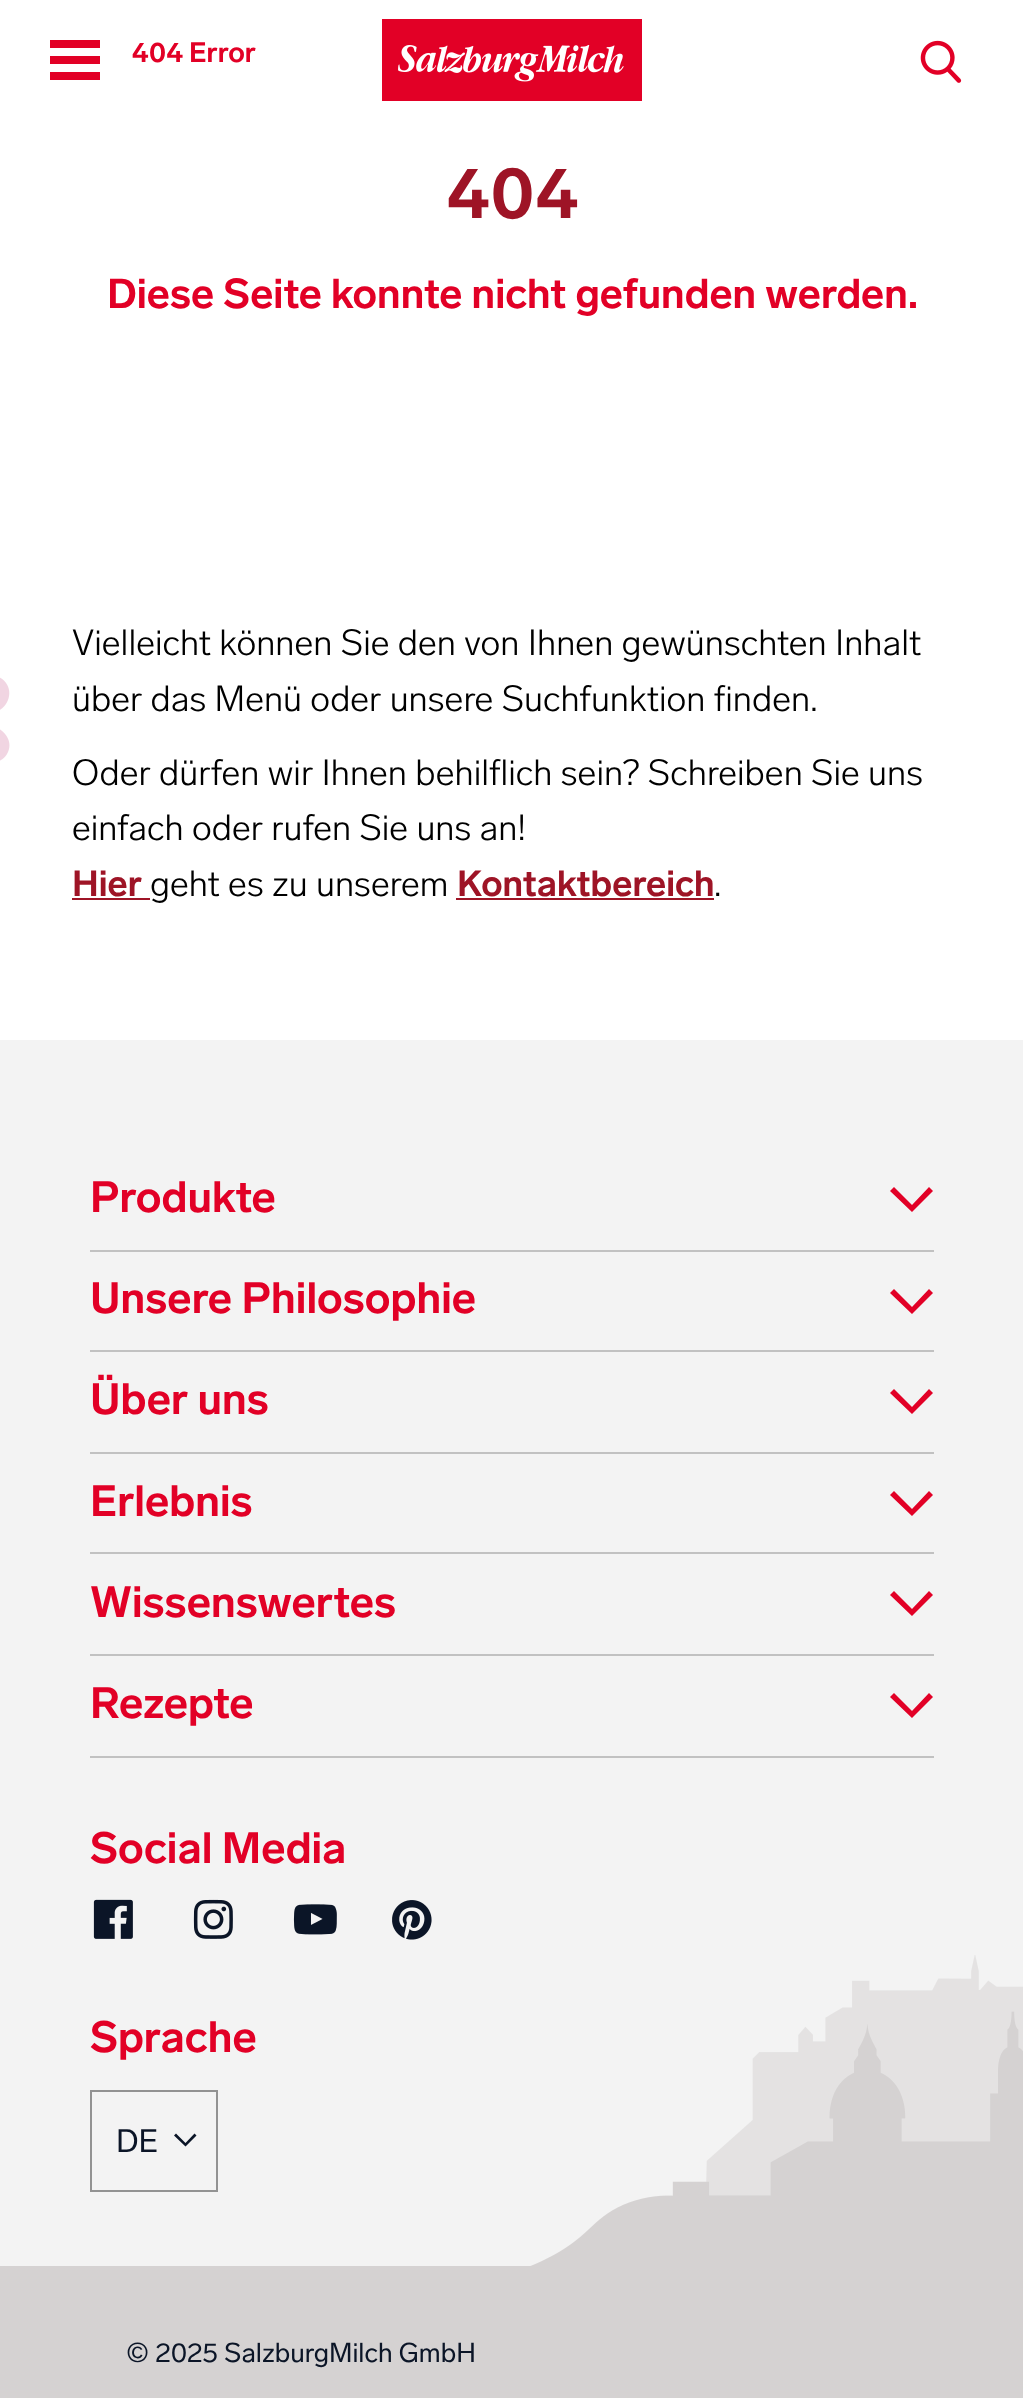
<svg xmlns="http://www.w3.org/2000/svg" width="1023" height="2398">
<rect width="100%" height="100%" fill="#fff"/>
<rect x="50" y="56" width="50" height="8" fill="#e20026"/>
<rect x="50" y="40" width="50" height="8" fill="#e20026"/>
<rect x="50" y="72" width="50" height="8" fill="#e20026"/>
<text x="132" y="62" style="font-family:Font;font-size:28px;font-weight:bold;fill:#e20026">404 Error</text>
<image x="382" y="19" width="260" height="82" href="media/1.png"/>
<image x="920" y="40" width="42" height="43" href="media/2.png"/>
<image x="0" y="677" width="10" height="84" href="media/3.png"/>
<text x="447" y="218" style="font-family:Font;font-size:72px;font-weight:bold;fill:#9e1426">404</text>
<text x="107" y="308" style="font-family:Font;font-size:41.3px;font-weight:bold;fill:#e20026">Diese Seite konnte nicht gefunden werden.</text>
<text x="72" y="655" style="font-family:Font;font-size:36px;font-weight:300;fill:#000">Vielleicht können Sie den von Ihnen gewünschten Inhalt</text>
<text x="72" y="711" style="font-family:Font;font-size:36px;font-weight:300;fill:#000">über das Menü oder unsere Suchfunktion finden.</text>
<text x="72" y="785" style="font-family:Font;font-size:36px;font-weight:300;fill:#000">Oder dürfen wir Ihnen behilflich sein? Schreiben Sie uns</text>
<text x="72" y="840" style="font-family:Font;font-size:36px;font-weight:300;fill:#000">einfach oder rufen Sie uns an!</text>
<text x="72" y="896" style="font-family:Font;font-size:36px;font-weight:bold;fill:#9e1426">Hier</text>
<rect x="72" y="898" width="78" height="2" fill="#9e1426"/>
<text x="150" y="896" style="font-family:Font;font-size:36px;font-weight:300;fill:#000">geht es zu unserem</text>
<text x="457" y="896" style="font-family:Font;font-size:36px;font-weight:bold;fill:#9e1426">Kontaktbereich</text>
<rect x="456" y="898" width="258" height="2" fill="#9e1426"/>
<text x="714" y="896" style="font-family:Font;font-size:36px;font-weight:300;fill:#000">.</text>
<rect y="1040" width="1023" height="1226" fill="#f3f3f3"/>
<rect x="90" y="1250" width="844" height="2" fill="#c1c1c1"/>
<text x="90" y="1212" style="font-family:Font;font-size:43.25px;font-weight:bold;fill:#e20026">Produkte</text>
<path d="M912 1205l-18-18l-4 4l22 21l21-21l-4-4z" fill="#e20026"/>
<rect x="90" y="1350" width="844" height="2" fill="#c1c1c1"/>
<text x="90" y="1313" style="font-family:Font;font-size:43.25px;font-weight:bold;fill:#e20026">Unsere Philosophie</text>
<path d="M912 1307l-18-18l-4 4l22 21l21-21l-4-4z" fill="#e20026"/>
<rect x="90" y="1452" width="844" height="2" fill="#c1c1c1"/>
<text x="90" y="1414" style="font-family:Font;font-size:43.25px;font-weight:bold;fill:#e20026">Über uns</text>
<path d="M912 1407l-18-18l-4 4l22 21l21-21l-4-4z" fill="#e20026"/>
<rect x="90" y="1552" width="844" height="2" fill="#c1c1c1"/>
<text x="90" y="1516" style="font-family:Font;font-size:43.25px;font-weight:bold;fill:#e20026">Erlebnis</text>
<path d="M912 1509l-18-18l-4 4l22 21l21-21l-4-4z" fill="#e20026"/>
<rect x="90" y="1654" width="844" height="2" fill="#c1c1c1"/>
<text x="90" y="1617" style="font-family:Font;font-size:43.25px;font-weight:bold;fill:#e20026">Wissenswertes</text>
<path d="M912 1609l-18-18l-4 4l22 21l21-21l-4-4z" fill="#e20026"/>
<rect x="90" y="1756" width="844" height="2" fill="#c1c1c1"/>
<text x="90" y="1718" style="font-family:Font;font-size:43.25px;font-weight:bold;fill:#e20026">Rezepte</text>
<path d="M912 1711l-18-18l-4 4l22 21l21-21l-4-4z" fill="#e20026"/>
<text x="90" y="1863" style="font-family:Font;font-size:43.25px;font-weight:bold;fill:#e20026">Social Media</text>
<image x="93" y="1899" width="40" height="40" href="media/4.png"/>
<image x="193" y="1899" width="40" height="40" href="media/5.png"/>
<image x="293" y="1904" width="44" height="31" href="media/6.png"/>
<image x="392" y="1900" width="40" height="40" href="media/7.png"/>
<text x="90" y="2052" style="font-family:Font;font-size:43.25px;font-weight:bold;fill:#e20026">Sprache</text>
<rect x="91" y="2091" width="126" height="100" fill="none" stroke="#929292" stroke-width="2"/>
<text x="116" y="2152" style="font-family:Font;font-size:32px;fill:#0b1527">DE</text>
<path d="M185.5 2143l-9.5-9.5l-2 2l11.5 11l11-11l-2-2z" fill="#0b1527"/>
<image x="530" y="1955" width="493" height="311" href="media/8.png"/>
<rect y="2266" width="1023" height="132" fill="#d5d2d2"/>
<text x="126" y="2362" style="font-family:Font;font-size:27px;fill:#0b1527">© 2025 SalzburgMilch GmbH</text>
</svg>
